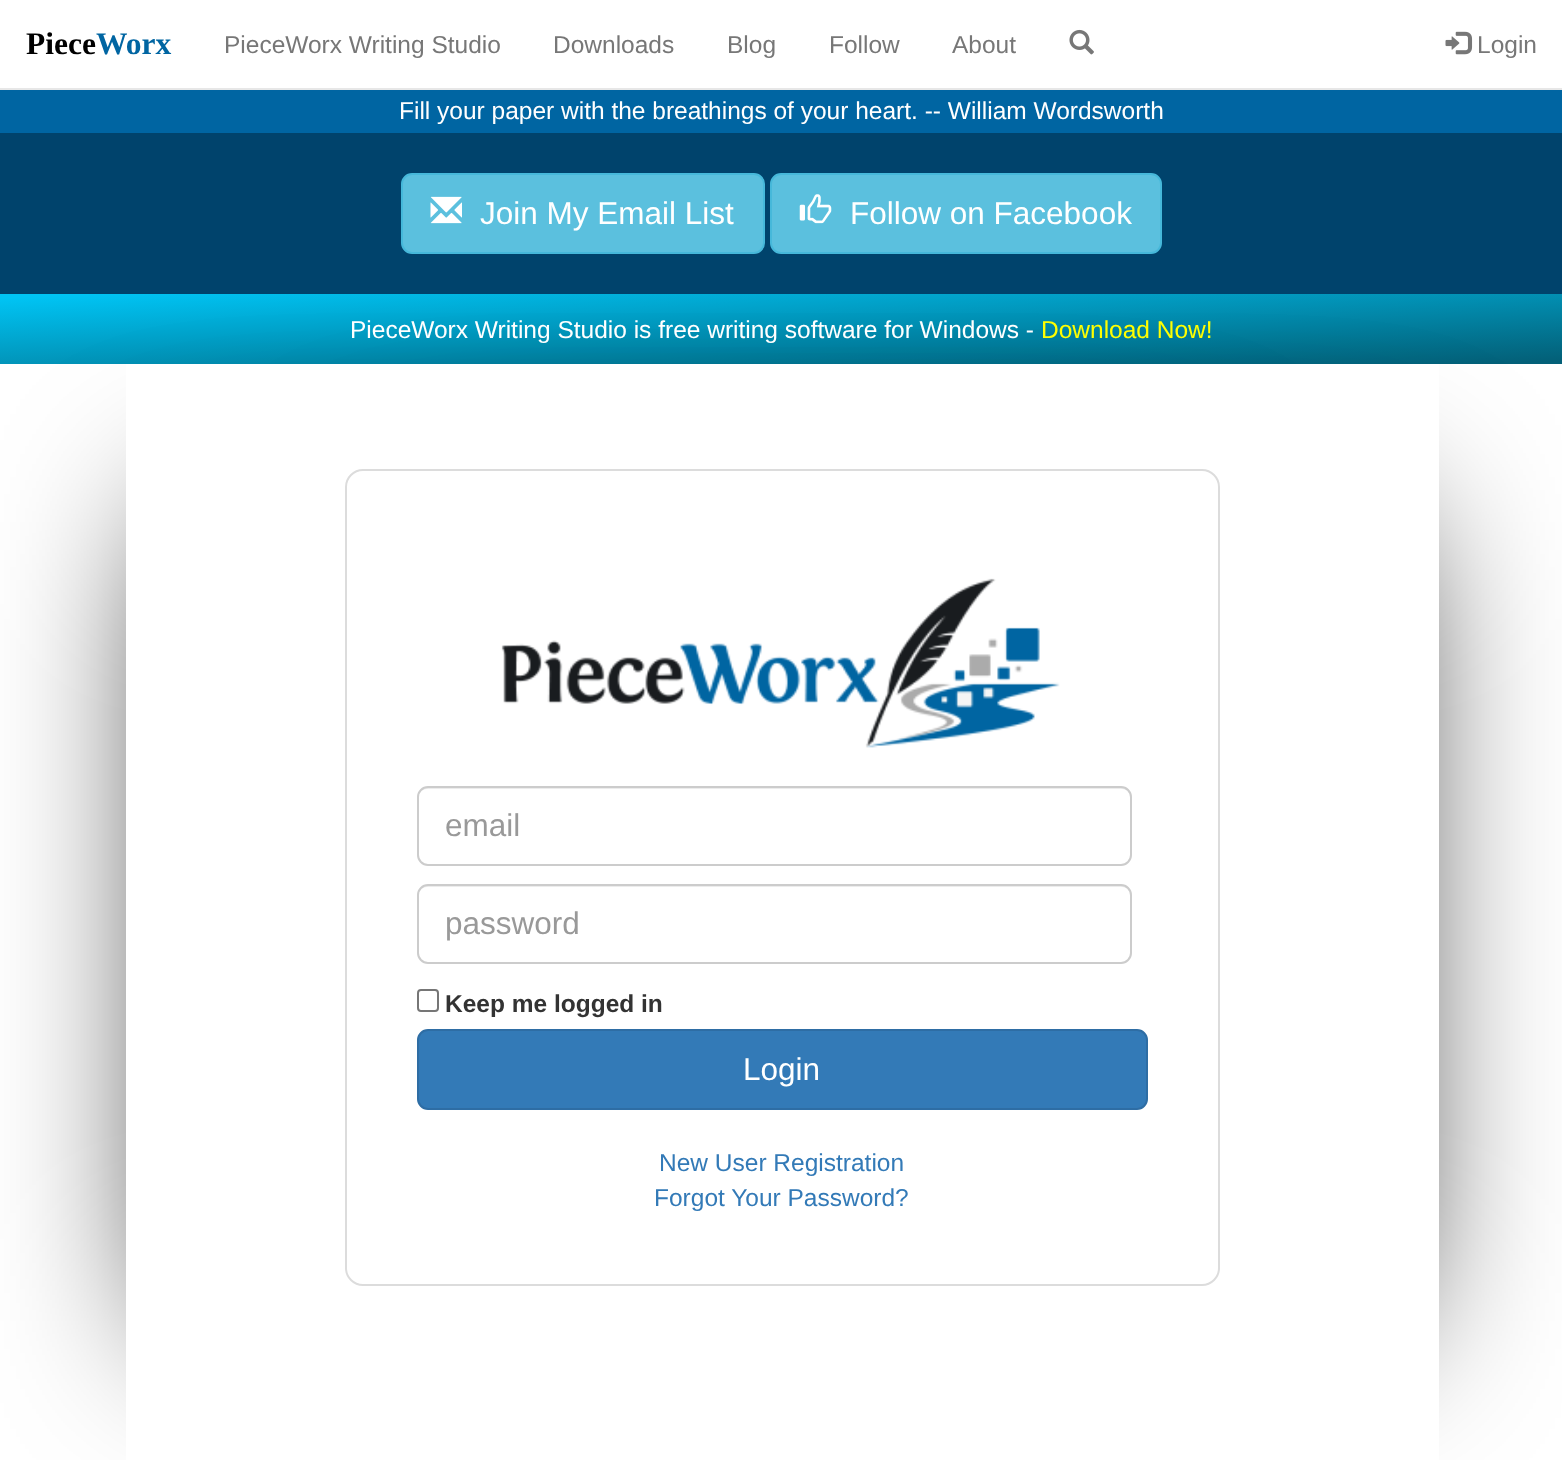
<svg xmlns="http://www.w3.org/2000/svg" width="1562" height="1460">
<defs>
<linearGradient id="g1" gradientUnits="userSpaceOnUse" x1="778" y1="259" x2="785" y2="399"><stop offset="0" stop-color="#00c4f4"/><stop offset="1" stop-color="#036078"/></linearGradient>
</defs>
<rect width="100%" height="100%" fill="#fff"/>
<rect y="88" width="1562" height="2" fill="#e7e7e7"/>
<text x="26" y="54" style="font-family:Liberation Serif;font-size:31.5px;font-weight:bold;fill:#000">Piece</text>
<text x="96" y="54" style="font-family:Liberation Serif;font-size:31.5px;font-weight:bold;fill:#0065a2">Worx</text>
<text x="224" y="53" style="font-family:Liberation Sans;font-size:24.5px;fill:#777">PieceWorx Writing Studio</text>
<text x="553" y="53" style="font-family:Liberation Sans;font-size:24.5px;fill:#777">Downloads</text>
<text x="727" y="53" style="font-family:Liberation Sans;font-size:24.5px;fill:#777">Blog</text>
<text x="829" y="53" style="font-family:Liberation Sans;font-size:24.5px;fill:#777">Follow</text>
<text x="952" y="53" style="font-family:Liberation Sans;font-size:24.5px;fill:#777">About</text>
<image x="1069" y="29" width="25" height="26" href="media/1.png"/>
<image x="1445" y="31" width="28" height="24" href="media/2.png"/>
<text x="1477" y="53" style="font-family:Liberation Sans;font-size:24.5px;fill:#777">Login</text>
<rect y="90" width="1562" height="43" fill="#0065a2"/>
<text x="399" y="119" style="font-family:Liberation Sans;font-size:24.5px;fill:#fff">Fill your paper with the breathings of your heart. -- William Wordsworth</text>
<rect y="133" width="1562" height="161" fill="#00436c"/>
<rect x="402" y="174" width="362" height="79" rx="10" fill="#5bc0de" stroke="#46b8da" stroke-width="2"/>
<image x="430" y="196" width="32" height="28" href="media/3.png"/>
<text x="480" y="224" style="font-family:Liberation Sans;font-size:31.5px;fill:#fff">Join My Email List</text>
<rect x="771" y="174" width="390" height="79" rx="10" fill="#5bc0de" stroke="#46b8da" stroke-width="2"/>
<image x="799" y="194" width="33" height="30" href="media/4.png"/>
<text x="850" y="224" style="font-family:Liberation Sans;font-size:31.5px;fill:#fff">Follow on Facebook</text>
<rect y="294" width="1562" height="70" fill="url(#g1)"/>
<rect x="389" y="522" width="997" height="799" fill="#000" filter="blur(87.5px)"/>
<rect x="179" y="522" width="997" height="799" fill="#000" filter="blur(87.5px)"/>
<text x="350" y="338" style="font-family:Liberation Sans;font-size:24.5px;fill:#fff">PieceWorx Writing Studio is free writing software for Windows -</text>
<text x="1041" y="338" style="font-family:Liberation Sans;font-size:24.5px;fill:#ff0">Download Now!</text>
<rect x="126" y="364" width="1313" height="1096" fill="#fff"/>
<rect x="346" y="470" width="873" height="815" rx="17" fill="none" stroke="#dcdcdc" stroke-width="2"/>
<image x="501" y="578" width="559" height="170" href="media/5.png"/>
<path d="M427 789h695c5 0 8 4 8 9v60l-1 3c1-1 2-3 2-5v-59c0-5-4-9-9-9h-695c-5 0-9 4-9 9v1c0-5 4-9 9-9z" fill="#ececec"/>
<rect x="418" y="787" width="713" height="78" rx="10" fill="none" stroke="#ccc" stroke-width="2"/>
<text x="445" y="836" style="font-family:Liberation Sans;font-size:31.5px;fill:#999">email</text>
<path d="M427 887h695c5 0 8 4 8 9v60l-1 3c1-1 2-3 2-5v-59c0-5-4-9-9-9h-695c-5 0-9 4-9 9v1c0-5 4-9 9-9z" fill="#ececec"/>
<rect x="418" y="885" width="713" height="78" rx="10" fill="none" stroke="#ccc" stroke-width="2"/>
<text x="445" y="934" style="font-family:Liberation Sans;font-size:31.5px;fill:#999">password</text>
<rect x="418" y="990" width="20" height="21" rx="3" fill="none" stroke="#767676" stroke-width="2"/>
<text x="445" y="1012" style="font-family:Liberation Sans;font-size:24.5px;font-weight:bold;fill:#333">Keep me logged in</text>
<rect x="418" y="1030" width="729" height="79" rx="10" fill="#337ab7" stroke="#2e6da4" stroke-width="2"/>
<text x="743" y="1080" style="font-family:Liberation Sans;font-size:31.5px;fill:#fff">Login</text>
<text x="659" y="1171" style="font-family:Liberation Sans;font-size:24.5px;fill:#337ab7">New User Registration</text>
<text x="654" y="1206" style="font-family:Liberation Sans;font-size:24.5px;fill:#337ab7">Forgot Your Password?</text>
</svg>
